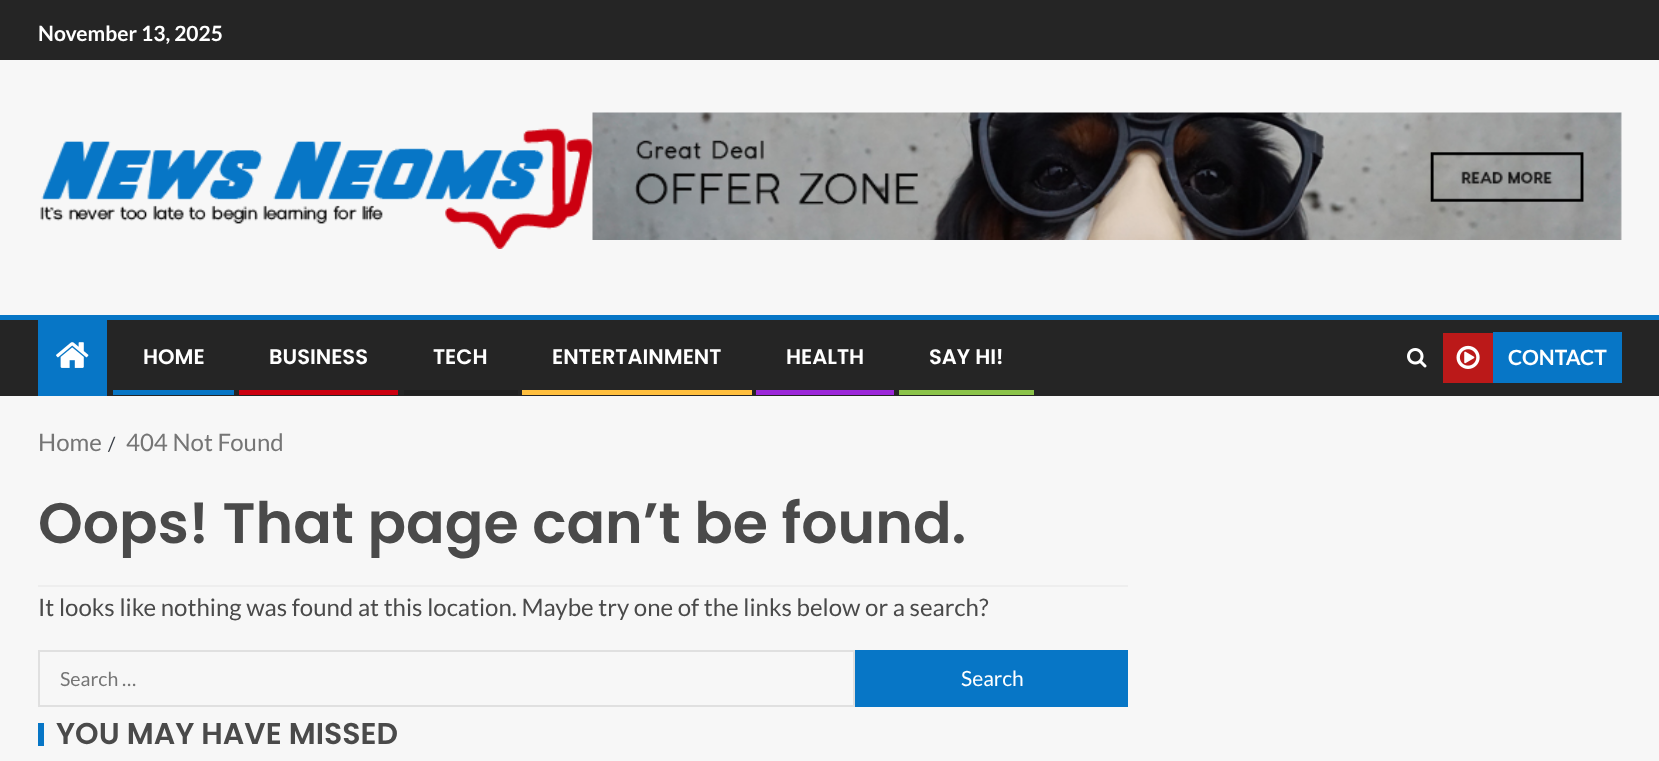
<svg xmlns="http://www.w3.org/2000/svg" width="1659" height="761">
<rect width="100%" height="100%" fill="#f7f7f7"/>
<rect width="1659" height="60" fill="#252525"/>
<text x="38" y="41" style="font-family:Lato;font-size:21px;font-weight:bold;fill:#fff">November 13, 2025</text>
<image x="40" y="128" width="553" height="121" href="media/1.png"/>
<rect x="1621" y="113" width="1" height="127" fill="#fff"/>
<image x="592" y="112" width="1030" height="128" href="media/2.png"/>
<rect y="320" width="1659" height="76" fill="#252525"/>
<rect y="315" width="1659" height="5" fill="#0776c6"/>
<rect x="38" y="320" width="69" height="76" fill="#0776c6"/>
<image x="56" y="342" width="33" height="26" href="media/3.png"/>
<text x="143" y="364" style="font-family:Poppins;font-size:21px;font-weight:600;fill:#fff">HOME</text>
<rect x="113" y="390" width="121" height="5" fill="#0776c6"/>
<text x="269" y="364" style="font-family:Poppins;font-size:21px;font-weight:600;fill:#fff">BUSINESS</text>
<rect x="239" y="390" width="159" height="5" fill="#cc0010"/>
<text x="433" y="364" style="font-family:Poppins;font-size:21px;font-weight:600;fill:#fff">TECH</text>
<rect x="404" y="390" width="114" height="5" fill="#202020"/>
<text x="552" y="364" style="font-family:Poppins;font-size:21px;font-weight:600;fill:#fff">ENTERTAINMENT</text>
<rect x="522" y="390" width="230" height="5" fill="#ffbf3f"/>
<text x="786" y="364" style="font-family:Poppins;font-size:21px;font-weight:600;fill:#fff">HEALTH</text>
<rect x="756" y="390" width="138" height="5" fill="#9c27d9"/>
<text x="929" y="364" style="font-family:Poppins;font-size:21px;font-weight:600;fill:#fff">SAY HI!</text>
<rect x="899" y="390" width="135" height="5" fill="#8bc34a"/>
<image x="1407" y="348" width="20" height="20" href="media/4.png"/>
<rect x="1443" y="333" width="50" height="50" fill="#bb1919"/>
<image x="1456" y="345" width="24" height="24" href="media/5.png"/>
<rect x="1493" y="332" width="129" height="51" fill="#0776c6"/>
<text x="1508" y="365" style="font-family:Lato;font-size:21px;font-weight:bold;fill:#fff">CONTACT</text>
<text x="38" y="451" style="font-family:Lato;font-size:24px;fill:#757575">Home</text>
<text x="108" y="451" style="font-family:Lato;font-size:19.5px;fill:#393e46">/</text>
<text x="126" y="451" style="font-family:Lato;font-size:24px;fill:#757575">404 Not Found</text>
<rect x="38" y="585" width="1090" height="2" fill="#eee"/>
<text x="38" y="543" style="font-family:Poppins;font-size:57px;font-weight:600;fill:#4a4a4a">Oops! That page can’t be found.</text>
<text x="38" y="616" style="font-family:Lato;font-size:24px;fill:#4a4a4a">It looks like nothing was found at this location. Maybe try one of the links below or a search?</text>
<rect x="39" y="651" width="815" height="55" fill="none" stroke="#e0e0e0" stroke-width="2"/>
<text x="60" y="686" style="font-family:Lato;font-size:19.5px;fill:#757575">Search …</text>
<rect x="855" y="650" width="273" height="57" fill="#0776c6"/>
<text x="961" y="686" style="font-family:Lato;font-size:21px;fill:#fff">Search</text>
<rect x="38" y="723" width="6" height="23" fill="#0776c6"/>
<text x="56" y="744" style="font-family:Poppins;font-size:30px;font-weight:600;fill:#4a4a4a">YOU MAY HAVE MISSED</text>
</svg>
